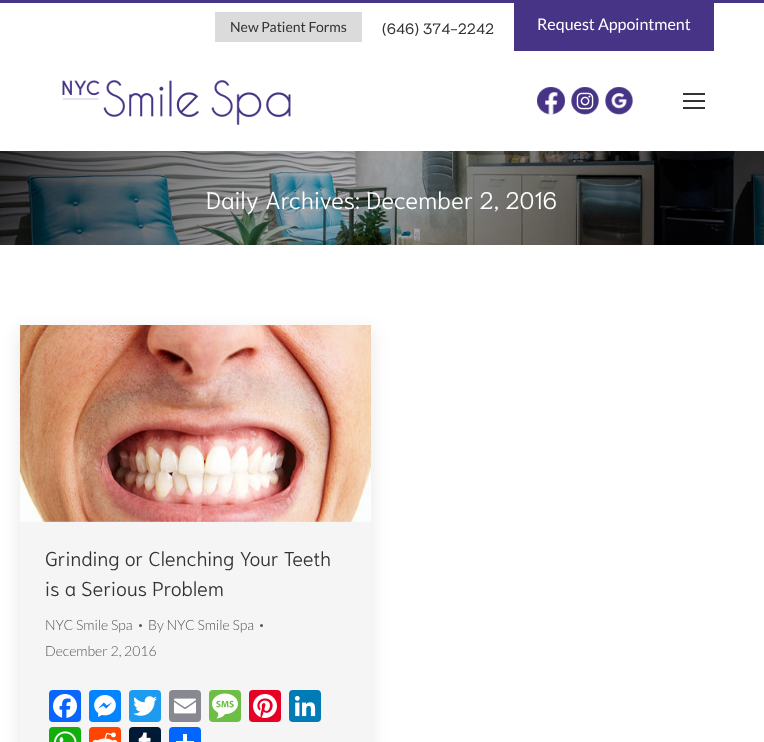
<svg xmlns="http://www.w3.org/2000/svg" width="764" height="742">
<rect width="100%" height="100%" fill="#fff"/>
<rect width="764" height="3" fill="#473486"/>
<rect x="215" y="12" width="147" height="30" fill="#dbdbdb"/>
<text x="230" y="32" style="font-family:Lato;font-size:14px;fill:#333">New Patient Forms</text>
<text x="382" y="34" style="font-family:Niramit;font-size:15px;fill:#333">(646) 374-2242</text>
<rect x="514" y="3" width="200" height="48" fill="#473486"/>
<text x="537" y="30" style="font-family:Lato;font-size:16px;fill:#fff">Request Appointment</text>
<image x="62" y="80" width="229" height="45" href="media/1.png"/>
<image x="537" y="87" width="28" height="28" href="media/2.png"/>
<image x="571" y="87" width="28" height="28" href="media/3.png"/>
<image x="605" y="87" width="28" height="28" href="media/4.png"/>
<rect x="683" y="93" width="22" height="2" fill="#333"/>
<rect x="683" y="100" width="22" height="2" fill="#333"/>
<rect x="683" y="107" width="22" height="2" fill="#333"/>
<image x="0" y="151" width="764" height="94" href="media/5.png"/>
<text x="206" y="209" style="font-family:Niramit;font-size:24px;font-weight:300;fill:#fff">Daily Archives: December 2, 2016</text>
<rect x="20" y="331" width="351" height="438" fill="#0000001a" filter="blur(9px)"/>
<rect x="20" y="521" width="351" height="221" fill="#f5f5f5"/>
<image x="20" y="325" width="351" height="197" href="media/6.png"/>
<text x="45" y="566" style="font-family:Niramit;font-size:20px;font-weight:300;fill:#333">Grinding or Clenching Your Teeth</text>
<text x="45" y="596" style="font-family:Niramit;font-size:20px;font-weight:300;fill:#333">is a Serious Problem</text>
<text x="45" y="630" style="font-family:Lato;font-size:14px;font-weight:300;fill:#555">NYC Smile Spa</text>
<circle cx="140.5" cy="625.5" r="1.5" fill="#555"/>
<text x="148" y="630" style="font-family:Lato;font-size:14px;font-weight:300;fill:#555">By NYC Smile Spa</text>
<circle cx="261.5" cy="625.5" r="1.5" fill="#555"/>
<text x="45" y="656" style="font-family:Lato;font-size:14px;font-weight:300;fill:#555">December 2, 2016</text>
<rect x="49" y="690" width="32" height="32" rx="4" fill="#0866ff"/>
<image x="53" y="694" width="24" height="24" href="media/7.png"/>
<rect x="89" y="690" width="32" height="32" rx="4" fill="#0084ff"/>
<image x="94" y="695" width="22" height="22" href="media/8.png"/>
<rect x="129" y="690" width="32" height="32" rx="4" fill="#1d9bf0"/>
<image x="133" y="696" width="24" height="20" href="media/9.png"/>
<rect x="169" y="690" width="32" height="32" rx="4" fill="#888990"/>
<image x="174" y="698" width="22" height="16" href="media/10.png"/>
<rect x="209" y="690" width="32" height="32" rx="4" fill="#6cbe45"/>
<image x="212" y="693" width="26" height="26" href="media/11.png"/>
<rect x="249" y="690" width="32" height="32" rx="4" fill="#e60023"/>
<image x="253" y="694" width="24" height="24" href="media/12.png"/>
<rect x="289" y="690" width="32" height="32" rx="4" fill="#007bb5"/>
<image x="294" y="695" width="22" height="22" href="media/13.png"/>
<rect x="49" y="727" width="32" height="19" rx="4" fill="#12af0a"/>
<image x="54" y="731" width="23" height="11" href="media/14.png"/>
<rect x="89" y="727" width="32" height="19" rx="4" fill="#ff4500"/>
<image x="92" y="732" width="26" height="10" href="media/15.png"/>
<rect x="129" y="727" width="32" height="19" rx="4" fill="#001935"/>
<image x="138" y="732" width="13" height="10" href="media/16.png"/>
<rect x="169" y="727" width="32" height="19" rx="4" fill="#0166ff"/>
<rect x="183" y="734" width="4" height="8" fill="#fff"/>
<rect x="176" y="741" width="18" height="1" fill="#fff"/>
</svg>
